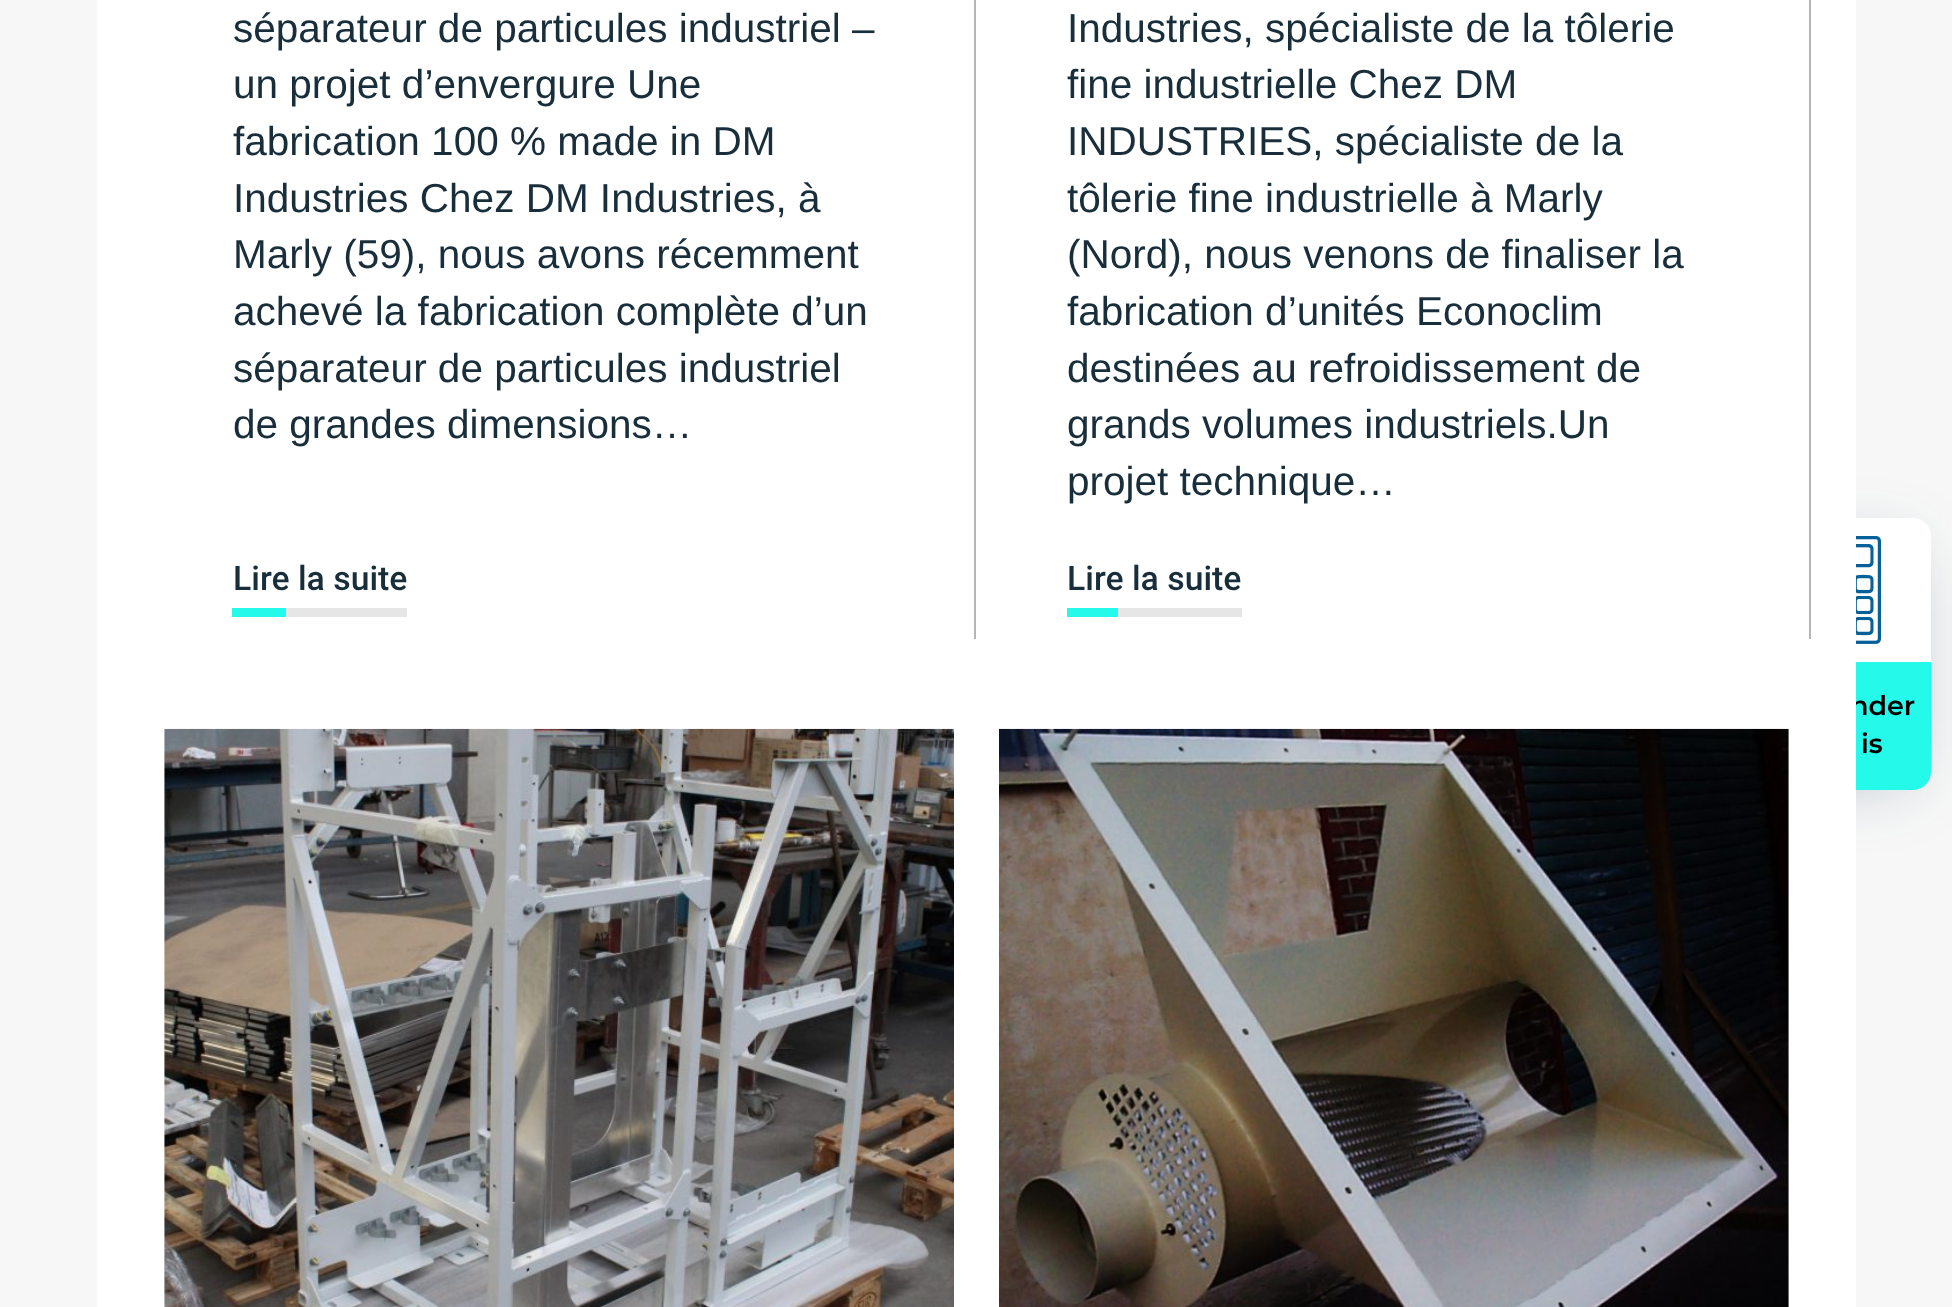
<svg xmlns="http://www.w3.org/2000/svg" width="1952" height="1307">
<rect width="100%" height="100%" fill="#f7f7f7"/>
<rect x="1773" y="551" width="135" height="228" fill="#123f524d" filter="blur(34px)"/>
<rect x="1751" y="518" width="180" height="272" rx="18" fill="#fff"/>
<path d="M1751 662h180v110c0 10-8 18-18 18h-144c-10 0-18-8-18-18z" fill="#25faea"/>
<text x="1850" y="715" style="font-family:Montserrat;font-size:27px;font-weight:600;fill:#000">nder</text>
<rect x="97" width="1759" height="1307" fill="#fff"/>
<text x="233" y="42" style="font-family:Liberation Sans;font-size:40.5px;fill:#192e3b">séparateur de particules industriel –</text>
<text x="233" y="98" style="font-family:Liberation Sans;font-size:40.5px;fill:#192e3b">un projet d’envergure Une</text>
<text x="233" y="155" style="font-family:Liberation Sans;font-size:40.5px;fill:#192e3b">fabrication 100 % made in DM</text>
<text x="233" y="212" style="font-family:Liberation Sans;font-size:40.5px;fill:#192e3b">Industries Chez DM Industries, à</text>
<text x="233" y="268" style="font-family:Liberation Sans;font-size:40.5px;fill:#192e3b">Marly (59), nous avons récemment</text>
<text x="233" y="325" style="font-family:Liberation Sans;font-size:40.5px;fill:#192e3b">achevé la fabrication complète d’un</text>
<text x="233" y="382" style="font-family:Liberation Sans;font-size:40.5px;fill:#192e3b">séparateur de particules industriel</text>
<text x="233" y="438" style="font-family:Liberation Sans;font-size:40.5px;fill:#192e3b">de grandes dimensions…</text>
<rect x="974" width="2" height="639" fill="#b5b5b5"/>
<text x="233" y="590" style="font-family:Roboto;font-size:33.75px;font-weight:500;fill:#192e3b">Lire la suite</text>
<rect x="232" y="608" width="54" height="9" fill="#25faea"/>
<rect x="286" y="608" width="121" height="9" fill="#e6e6e6"/>
<text x="1067" y="42" style="font-family:Liberation Sans;font-size:40.5px;fill:#192e3b">Industries, spécialiste de la tôlerie</text>
<text x="1067" y="98" style="font-family:Liberation Sans;font-size:40.5px;fill:#192e3b">fine industrielle Chez DM</text>
<text x="1067" y="155" style="font-family:Liberation Sans;font-size:40.5px;fill:#192e3b">INDUSTRIES, spécialiste de la</text>
<text x="1067" y="212" style="font-family:Liberation Sans;font-size:40.5px;fill:#192e3b">tôlerie fine industrielle à Marly</text>
<text x="1067" y="268" style="font-family:Liberation Sans;font-size:40.5px;fill:#192e3b">(Nord), nous venons de finaliser la</text>
<text x="1067" y="325" style="font-family:Liberation Sans;font-size:40.5px;fill:#192e3b">fabrication d’unités Econoclim</text>
<text x="1067" y="382" style="font-family:Liberation Sans;font-size:40.5px;fill:#192e3b">destinées au refroidissement de</text>
<text x="1067" y="438" style="font-family:Liberation Sans;font-size:40.5px;fill:#192e3b">grands volumes industriels.Un</text>
<text x="1067" y="495" style="font-family:Liberation Sans;font-size:40.5px;fill:#192e3b">projet technique…</text>
<rect x="1809" width="2" height="639" fill="#b5b5b5"/>
<text x="1067" y="590" style="font-family:Roboto;font-size:33.75px;font-weight:500;fill:#192e3b">Lire la suite</text>
<rect x="1067" y="608" width="51" height="9" fill="#25faea"/>
<rect x="1118" y="608" width="124" height="9" fill="#e6e6e6"/>
<image x="164" y="728" width="790" height="579" href="media/1.png"/>
<image x="999" y="728" width="790" height="579" href="media/2.png"/>
<image x="1856" y="536" width="25" height="108" href="media/3.png"/>
<text x="1861" y="753" style="font-family:Montserrat;font-size:27px;font-weight:600;fill:#000">is</text>
</svg>
